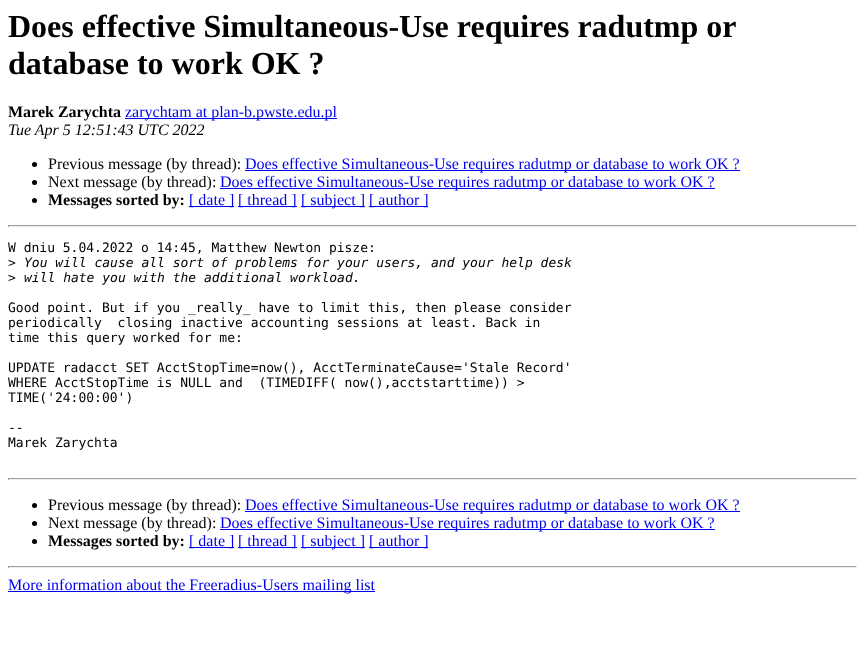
<svg xmlns="http://www.w3.org/2000/svg" width="865" height="652">
<rect width="100%" height="100%" fill="#fff"/>
<text x="8" y="37" style="font-family:Liberation Serif;font-size:32px;font-weight:bold;fill:#000">Does effective Simultaneous-Use requires radutmp or</text>
<text x="8" y="74" style="font-family:Liberation Serif;font-size:32px;font-weight:bold;fill:#000">database to work OK ?</text>
<text x="8" y="117" style="font-family:Liberation Serif;font-size:16px;font-weight:bold;fill:#000">Marek Zarychta</text>
<rect x="125" y="118" width="212" height="1" fill="#00e"/>
<text x="125" y="117" style="font-family:Liberation Serif;font-size:16px;fill:#00e">zarychtam at plan-b.pwste.edu.pl</text>
<text x="8" y="135" style="font-family:Liberation Serif;font-size:16px;font-style:italic;fill:#000">Tue Apr 5 12:51:43 UTC 2022</text>
<circle cx="34.5" cy="164.5" r="2.5" fill="#000"/>
<text x="48" y="169" style="font-family:Liberation Serif;font-size:16px;fill:#000">Previous message (by thread):</text>
<rect x="245" y="170" width="495" height="1" fill="#00e"/>
<text x="245" y="169" style="font-family:Liberation Serif;font-size:16px;fill:#00e">Does effective Simultaneous-Use requires radutmp or database to work OK ?</text>
<circle cx="34.5" cy="182.5" r="2.5" fill="#000"/>
<text x="48" y="187" style="font-family:Liberation Serif;font-size:16px;fill:#000">Next message (by thread):</text>
<rect x="220" y="188" width="495" height="1" fill="#00e"/>
<text x="220" y="187" style="font-family:Liberation Serif;font-size:16px;fill:#00e">Does effective Simultaneous-Use requires radutmp or database to work OK ?</text>
<circle cx="34.5" cy="200.5" r="2.5" fill="#000"/>
<text x="48" y="205" style="font-family:Liberation Serif;font-size:16px;font-weight:bold;fill:#000">Messages sorted by:</text>
<rect x="189" y="206" width="45" height="1" fill="#00e"/>
<text x="189" y="205" style="font-family:Liberation Serif;font-size:16px;fill:#00e">[ date ]</text>
<rect x="238" y="206" width="59" height="1" fill="#00e"/>
<text x="238" y="205" style="font-family:Liberation Serif;font-size:16px;fill:#00e">[ thread ]</text>
<rect x="301" y="206" width="64" height="1" fill="#00e"/>
<text x="301" y="205" style="font-family:Liberation Serif;font-size:16px;fill:#00e">[ subject ]</text>
<rect x="369" y="206" width="59" height="1" fill="#00e"/>
<text x="369" y="205" style="font-family:Liberation Serif;font-size:16px;fill:#00e">[ author ]</text>
<rect x="8" y="225" width="849" height="1" fill="#9f9f9f"/>
<rect x="856" y="225" width="1" height="2" fill="#eee"/>
<rect x="8" y="226" width="849" height="1" fill="#eee"/>
<rect x="8" y="225" width="1" height="2" fill="#9f9f9f"/>
<text x="8" y="252" style="font-family:DejaVu Sans Mono;font-size:13px;fill:#000">W dniu 5.04.2022 o 14:45, Matthew Newton pisze:</text>
<text x="8" y="267" style="font-family:DejaVu Sans Mono;font-size:13px;fill:#000">&gt;</text>
<text x="24" y="267" style="font-family:DejaVu Sans Mono;font-size:13px;font-style:italic;fill:#000">You will cause all sort of problems for your users, and your help desk</text>
<text x="8" y="282" style="font-family:DejaVu Sans Mono;font-size:13px;fill:#000">&gt;</text>
<text x="24" y="282" style="font-family:DejaVu Sans Mono;font-size:13px;font-style:italic;fill:#000">will hate you with the additional workload.</text>
<text x="8" y="312" style="font-family:DejaVu Sans Mono;font-size:13px;fill:#000">Good point. But if you _really_ have to limit this, then please consider</text>
<text x="8" y="327" style="font-family:DejaVu Sans Mono;font-size:13px;fill:#000" xml:space="preserve">periodically  closing inactive accounting sessions at least. Back in</text>
<text x="8" y="342" style="font-family:DejaVu Sans Mono;font-size:13px;fill:#000">time this query worked for me:</text>
<text x="8" y="372" style="font-family:DejaVu Sans Mono;font-size:13px;fill:#000">UPDATE radacct SET AcctStopTime=now(), AcctTerminateCause='Stale Record'</text>
<text x="8" y="387" style="font-family:DejaVu Sans Mono;font-size:13px;fill:#000" xml:space="preserve">WHERE AcctStopTime is NULL and  (TIMEDIFF( now(),acctstarttime)) &gt;</text>
<text x="8" y="402" style="font-family:DejaVu Sans Mono;font-size:13px;fill:#000">TIME('24:00:00')</text>
<text x="8" y="432" style="font-family:DejaVu Sans Mono;font-size:13px;fill:#000">--</text>
<text x="8" y="447" style="font-family:DejaVu Sans Mono;font-size:13px;fill:#000">Marek Zarychta</text>
<rect x="8" y="478" width="849" height="1" fill="#9f9f9f"/>
<rect x="856" y="478" width="1" height="2" fill="#eee"/>
<rect x="8" y="479" width="849" height="1" fill="#eee"/>
<rect x="8" y="478" width="1" height="2" fill="#9f9f9f"/>
<circle cx="34.5" cy="505.5" r="2.5" fill="#000"/>
<text x="48" y="510" style="font-family:Liberation Serif;font-size:16px;fill:#000">Previous message (by thread):</text>
<rect x="245" y="511" width="495" height="1" fill="#00e"/>
<text x="245" y="510" style="font-family:Liberation Serif;font-size:16px;fill:#00e">Does effective Simultaneous-Use requires radutmp or database to work OK ?</text>
<circle cx="34.5" cy="523.5" r="2.5" fill="#000"/>
<text x="48" y="528" style="font-family:Liberation Serif;font-size:16px;fill:#000">Next message (by thread):</text>
<rect x="220" y="529" width="495" height="1" fill="#00e"/>
<text x="220" y="528" style="font-family:Liberation Serif;font-size:16px;fill:#00e">Does effective Simultaneous-Use requires radutmp or database to work OK ?</text>
<circle cx="34.5" cy="541.5" r="2.5" fill="#000"/>
<text x="48" y="546" style="font-family:Liberation Serif;font-size:16px;font-weight:bold;fill:#000">Messages sorted by:</text>
<rect x="189" y="547" width="45" height="1" fill="#00e"/>
<text x="189" y="546" style="font-family:Liberation Serif;font-size:16px;fill:#00e">[ date ]</text>
<rect x="238" y="547" width="59" height="1" fill="#00e"/>
<text x="238" y="546" style="font-family:Liberation Serif;font-size:16px;fill:#00e">[ thread ]</text>
<rect x="301" y="547" width="64" height="1" fill="#00e"/>
<text x="301" y="546" style="font-family:Liberation Serif;font-size:16px;fill:#00e">[ subject ]</text>
<rect x="369" y="547" width="59" height="1" fill="#00e"/>
<text x="369" y="546" style="font-family:Liberation Serif;font-size:16px;fill:#00e">[ author ]</text>
<rect x="8" y="566" width="849" height="1" fill="#9f9f9f"/>
<rect x="856" y="566" width="1" height="2" fill="#eee"/>
<rect x="8" y="567" width="849" height="1" fill="#eee"/>
<rect x="8" y="566" width="1" height="2" fill="#9f9f9f"/>
<rect x="8" y="591" width="367" height="1" fill="#00e"/>
<text x="8" y="590" style="font-family:Liberation Serif;font-size:16px;fill:#00e">More information about the Freeradius-Users mailing list</text>
</svg>
